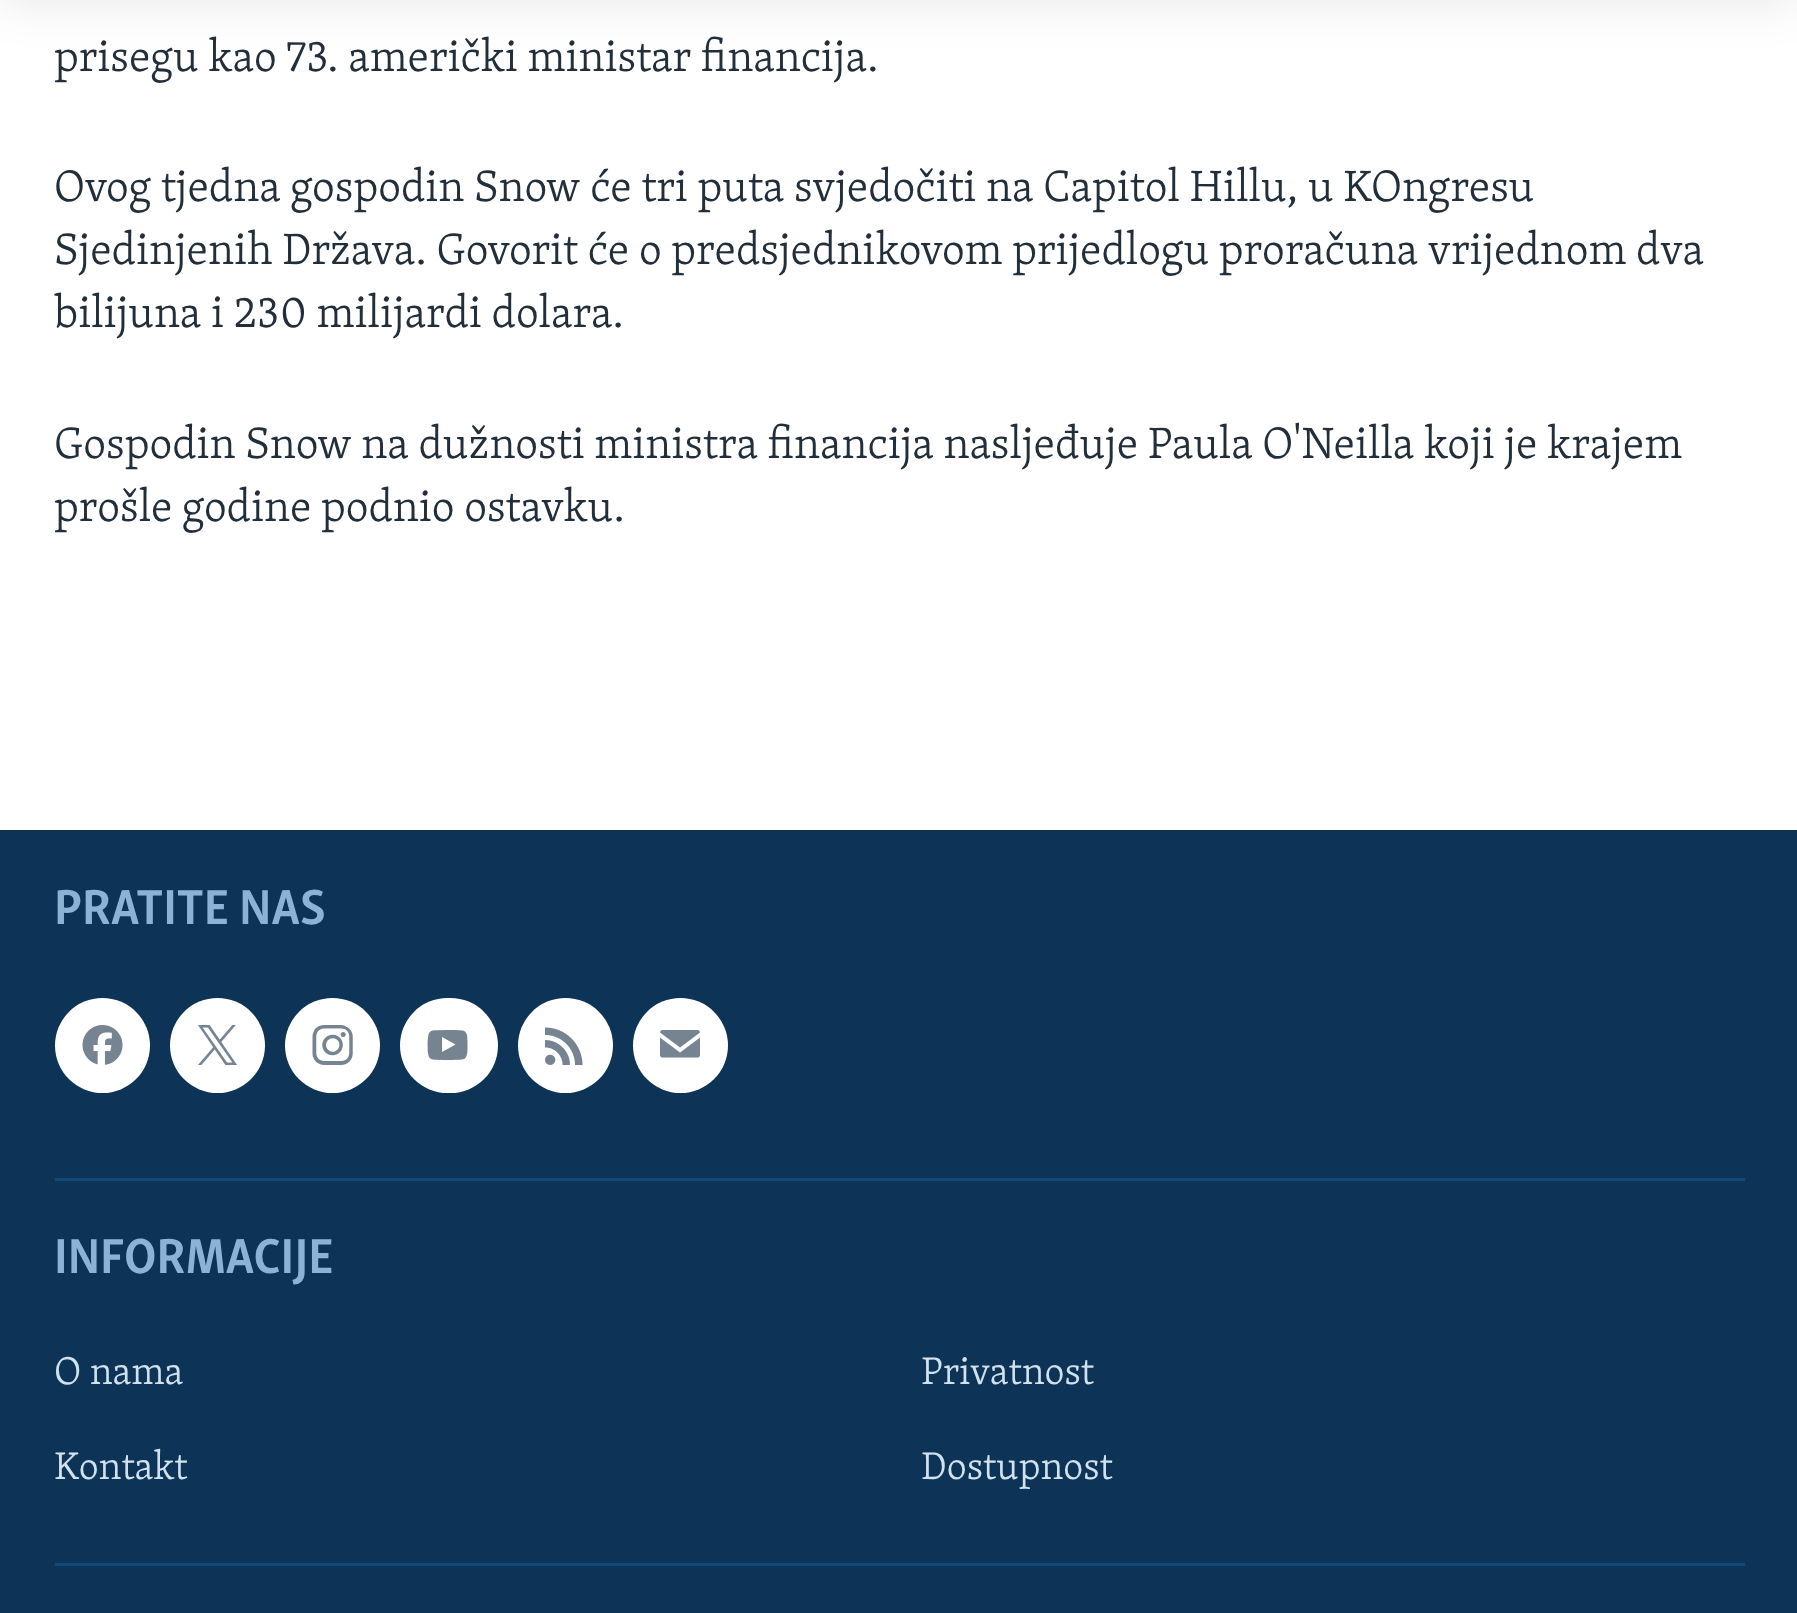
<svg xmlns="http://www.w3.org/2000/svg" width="1797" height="1613">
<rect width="100%" height="100%" fill="#fff"/>
<rect y="-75" width="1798" height="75" fill="#0000001a" filter="blur(25px)"/>
<text x="54" y="71" style="font-family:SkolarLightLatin;font-size:45px;font-weight:300;fill:#222f3a">prisegu kao 73. američki ministar financija.</text>
<text x="54" y="201" style="font-family:SkolarLightLatin;font-size:45px;font-weight:300;fill:#222f3a">Ovog tjedna gospodin Snow će tri puta svjedočiti na Capitol Hillu, u KOngresu</text>
<text x="54" y="264" style="font-family:SkolarLightLatin;font-size:45px;font-weight:300;fill:#222f3a">Sjedinjenih Država. Govorit će o predsjednikovom prijedlogu proračuna vrijednom dva</text>
<text x="54" y="327" style="font-family:SkolarLightLatin;font-size:45px;font-weight:300;fill:#222f3a">bilijuna i 230 milijardi dolara.</text>
<text x="54" y="458" style="font-family:SkolarLightLatin;font-size:45px;font-weight:300;fill:#222f3a">Gospodin Snow na dužnosti ministra financija nasljeđuje Paula O'Neilla koji je krajem</text>
<text x="54" y="521" style="font-family:SkolarLightLatin;font-size:45px;font-weight:300;fill:#222f3a">prošle godine podnio ostavku.</text>
<rect y="830" width="1797" height="783" fill="#0d3456"/>
<text x="54" y="924" style="font-family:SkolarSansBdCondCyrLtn;font-size:50.5px;font-weight:bold;fill:#8db3d4">PRATITE NAS</text>
<circle cx="102.5" cy="1045.5" r="47.5" fill="#fff"/>
<image x="82" y="1025" width="41" height="40" href="media/1.png"/>
<circle cx="217.5" cy="1045.5" r="47.5" fill="#fff"/>
<image x="198" y="1025" width="39" height="40" href="media/2.png"/>
<circle cx="332.5" cy="1045.5" r="47.5" fill="#fff"/>
<image x="312" y="1025" width="41" height="40" href="media/3.png"/>
<rect x="400" y="998" width="98" height="95" rx="47.5" fill="#fff"/>
<image x="427" y="1030" width="41" height="31" href="media/4.png"/>
<circle cx="565.5" cy="1045.5" r="47.5" fill="#fff"/>
<image x="545" y="1027" width="38" height="38" href="media/5.png"/>
<circle cx="680.5" cy="1045.5" r="47.5" fill="#fff"/>
<image x="660" y="1030" width="40" height="28" href="media/6.png"/>
<rect x="55" y="1178" width="1690" height="3" fill="#134976"/>
<text x="54" y="1273" style="font-family:SkolarSansBdCondCyrLtn;font-size:50.5px;font-weight:bold;fill:#8db3d4">INFORMACIJE</text>
<text x="54" y="1384" style="font-family:SkolarLightLatin;font-size:39.5px;font-weight:300;fill:#d1e1ee">O nama</text>
<text x="921" y="1384" style="font-family:SkolarLightLatin;font-size:39.5px;font-weight:300;fill:#d1e1ee">Privatnost</text>
<text x="54" y="1479" style="font-family:SkolarLightLatin;font-size:39.5px;font-weight:300;fill:#d1e1ee">Kontakt</text>
<text x="921" y="1479" style="font-family:SkolarLightLatin;font-size:39.5px;font-weight:300;fill:#d1e1ee">Dostupnost</text>
<rect x="55" y="1563" width="1690" height="3" fill="#134976"/>
</svg>
